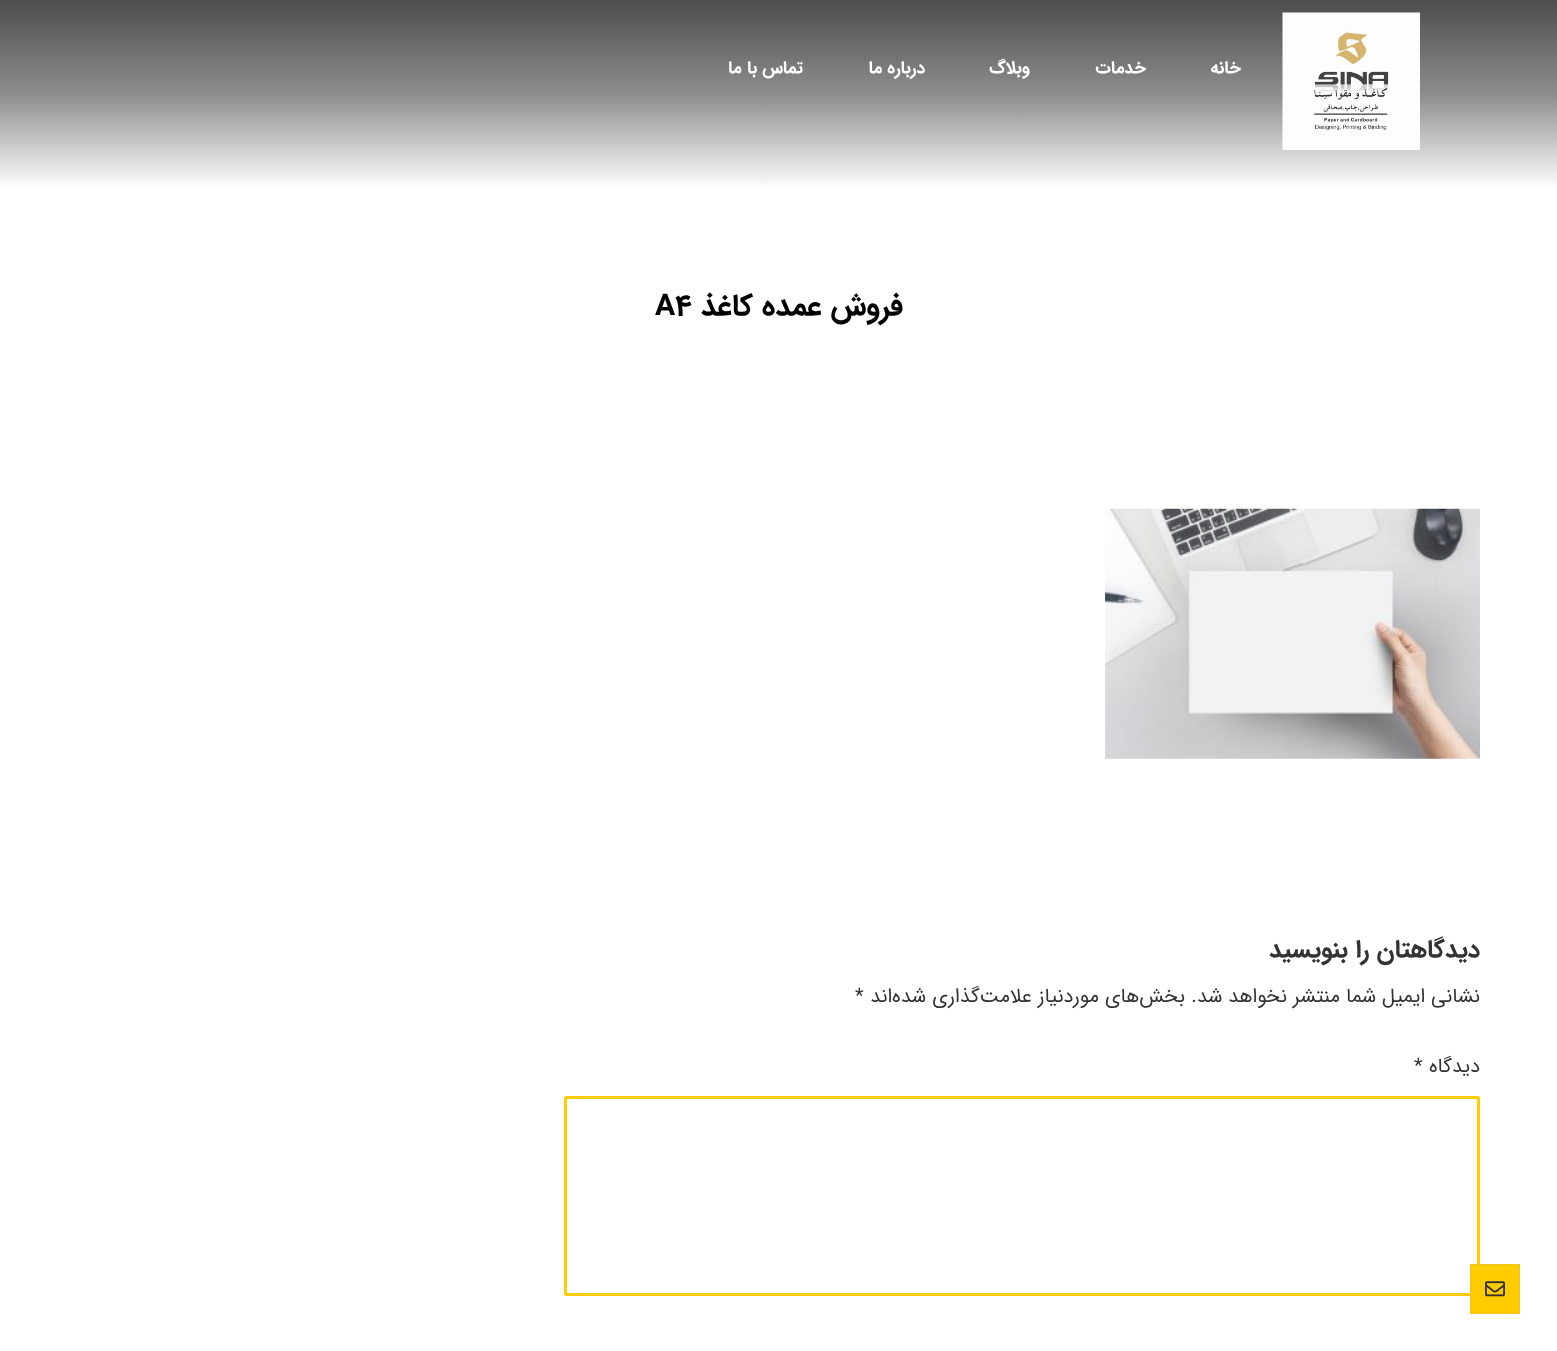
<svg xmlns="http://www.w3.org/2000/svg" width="1557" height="1351">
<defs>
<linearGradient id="g1" gradientUnits="userSpaceOnUse" x1="779" y1="0" x2="779" y2="188"><stop offset="0" stop-color="#4d4d4d"/><stop offset="0.5" stop-color="#8d8d8d"/><stop offset="1" stop-color="#fdfdfd"/></linearGradient>
</defs>
<rect width="100%" height="100%" fill="#fff"/>
<rect width="1557" height="188" fill="url(#g1)"/>
<image x="1282" y="12" width="138" height="138" href="media/1.png"/>
<text x="1241" y="73" style="font-family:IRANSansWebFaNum;font-size:17.5px;font-weight:bold;direction:rtl;fill:#fff">خانه</text>
<text x="1146" y="73" style="font-family:IRANSansWebFaNum;font-size:17.5px;font-weight:bold;direction:rtl;fill:#fff">خدمات</text>
<text x="1030" y="73" style="font-family:IRANSansWebFaNum;font-size:17.5px;font-weight:bold;direction:rtl;fill:#fff">وبلاگ</text>
<text x="925" y="73" style="font-family:IRANSansWebFaNum;font-size:17.5px;font-weight:bold;direction:rtl;fill:#fff">درباره ما</text>
<text x="803" y="73" style="font-family:IRANSansWebFaNum;font-size:17.5px;font-weight:bold;direction:rtl;fill:#fff">تماس با ما</text>
<text x="903" y="315" style="font-family:IRANSansWebFaNum;font-size:30px;font-weight:bold;direction:rtl;fill:#000">فروش عمده کاغذ</text>
<text x="655" y="315" style="font-family:IRANSansWebFaNum;font-size:30px;font-weight:bold;fill:#000">A4</text>
<image x="1105" y="508" width="375" height="251" href="media/2.png"/>
<text x="1480" y="957" style="font-family:IRANSansWebFaNum;font-size:25px;font-weight:bold;direction:rtl;fill:#333">دیدگاهتان را بنویسید</text>
<text x="1480" y="1002" style="font-family:IRANSansWebFaNum;font-size:20px;direction:rtl;fill:#333">نشانی ایمیل شما منتشر نخواهد شد.</text>
<text x="1185" y="1002" style="font-family:IRANSansWebFaNum;font-size:20px;direction:rtl;fill:#333">بخش‌های موردنیاز علامت‌گذاری شده‌اند</text>
<text x="855" y="1002" style="font-family:IRANSansWebFaNum;font-size:20px;fill:#333">*</text>
<text x="1480" y="1072" style="font-family:IRANSansWebFaNum;font-size:20px;direction:rtl;fill:#333">دیدگاه</text>
<text x="1414" y="1072" style="font-family:IRANSansWebFaNum;font-size:20px;fill:#333">*</text>
<rect x="565.5" y="1097.5" width="913" height="197" rx="1" fill="none" stroke="#fc0" stroke-width="3"/>
<rect x="1470.5" y="1264.5" width="49" height="49" fill="#fc0" stroke="#edc521"/>
<image x="1485" y="1281" width="20" height="16" href="media/3.png"/>
</svg>
